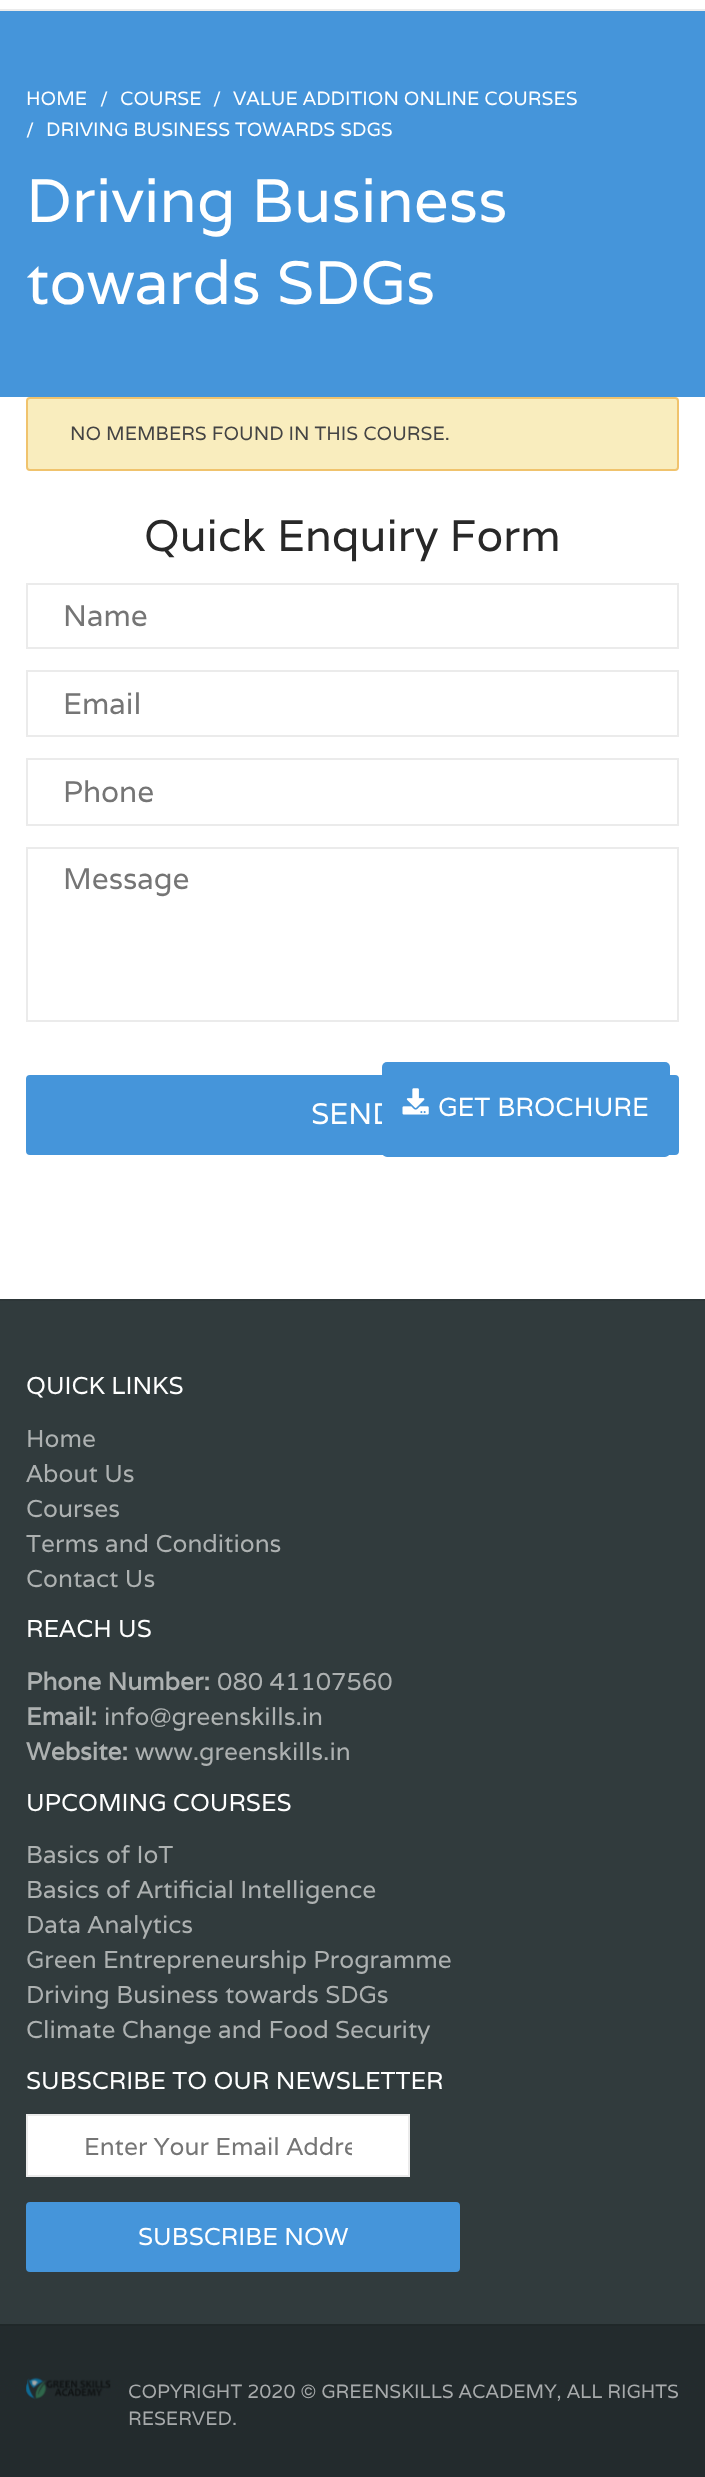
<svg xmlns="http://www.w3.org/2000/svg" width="705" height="2477">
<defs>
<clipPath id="clip1"><rect x="84" y="2130" width="268" height="31"/></clipPath>
</defs>
<rect width="100%" height="100%" fill="#fff"/>
<rect y="9" width="705" height="2" fill="#ebebeb"/>
<rect y="11" width="705" height="386" fill="#4595da"/>
<text x="26" y="105" style="font-family:Varela;font-size:19.25px;fill:#fff">HOME</text>
<text x="100" y="105" style="font-family:Varela;font-size:18px;fill:#fff">/</text>
<text x="120" y="105" style="font-family:Varela;font-size:19.25px;fill:#fff">COURSE</text>
<text x="213" y="105" style="font-family:Varela;font-size:18px;fill:#fff">/</text>
<text x="233" y="105" style="font-family:Varela;font-size:19.25px;fill:#fff">VALUE ADDITION ONLINE COURSES</text>
<text x="26" y="136" style="font-family:Varela;font-size:18px;fill:#fff">/</text>
<text x="46" y="136" style="font-family:Varela;font-size:19.25px;fill:#fff">DRIVING BUSINESS TOWARDS SDGS</text>
<text x="26" y="222" style="font-family:Varela;font-size:61.25px;fill:#fff">Driving Business</text>
<text x="26" y="304" style="font-family:Varela;font-size:61.25px;fill:#fff">towards SDGs</text>
<rect x="27" y="398" width="651" height="72" rx="3" fill="#f9edbe" stroke="#f0c36d" stroke-width="2"/>
<text x="70" y="440" style="font-family:Varela;font-size:19.25px;fill:#444">NO MEMBERS FOUND IN THIS COURSE.</text>
<text x="144" y="551" style="font-family:Varela;font-size:44px;fill:#282828">Quick Enquiry Form</text>
<rect x="27" y="584" width="651" height="64" fill="none" stroke="#ebebeb" stroke-width="2"/>
<text x="63" y="626" style="font-family:Varela;font-size:29.75px;fill:#757575">Name</text>
<rect x="27" y="671" width="651" height="65" fill="none" stroke="#ebebeb" stroke-width="2"/>
<text x="63" y="714" style="font-family:Varela;font-size:29.75px;fill:#757575">Email</text>
<rect x="27" y="759" width="651" height="66" fill="none" stroke="#ebebeb" stroke-width="2"/>
<text x="63" y="802" style="font-family:Varela;font-size:29.75px;fill:#757575">Phone</text>
<rect x="27" y="848" width="651" height="173" fill="none" stroke="#ebebeb" stroke-width="2"/>
<text x="63" y="889" style="font-family:Varela;font-size:29.75px;fill:#757575">Message</text>
<rect x="28" y="1077" width="649" height="76" rx="2" fill="#4595da" stroke="#4595da" stroke-width="4"/>
<text x="311" y="1124" style="font-family:Varela;font-size:29.75px;fill:#fff">SEND</text>
<rect y="1301" width="705" height="1023" fill="#313b3d"/>
<rect y="1299" width="705" height="2" fill="#2d3638"/>
<text x="26" y="1394" style="font-family:Varela;font-size:24.5px;fill:#fff">QUICK LINKS</text>
<text x="26" y="1447" style="font-family:Varela;font-size:24.5px;fill:#adb1b1">Home</text>
<text x="26" y="1482" style="font-family:Varela;font-size:24.5px;fill:#adb1b1">About Us</text>
<text x="26" y="1517" style="font-family:Varela;font-size:24.5px;fill:#adb1b1">Courses</text>
<text x="26" y="1552" style="font-family:Varela;font-size:24.5px;fill:#adb1b1">Terms and Conditions</text>
<text x="26" y="1587" style="font-family:Varela;font-size:24.5px;fill:#adb1b1">Contact Us</text>
<text x="26" y="1637" style="font-family:Varela;font-size:24.5px;fill:#fff">REACH US</text>
<text x="26" y="1690" style="font-family:Varela;font-size:24.5px;font-weight:bold;fill:#adb1b1">Phone Number:</text>
<text x="217" y="1690" style="font-family:Varela;font-size:24.5px;fill:#adb1b1">080 41107560</text>
<text x="26" y="1725" style="font-family:Varela;font-size:24.5px;font-weight:bold;fill:#adb1b1">Email:</text>
<text x="104" y="1725" style="font-family:Varela;font-size:24.5px;fill:#adb1b1">info@greenskills.in</text>
<text x="26" y="1760" style="font-family:Varela;font-size:24.5px;font-weight:bold;fill:#adb1b1">Website:</text>
<text x="135" y="1760" style="font-family:Varela;font-size:24.5px;fill:#adb1b1">www.greenskills.in</text>
<text x="26" y="1811" style="font-family:Varela;font-size:24.5px;fill:#fff">UPCOMING COURSES</text>
<text x="26" y="1863" style="font-family:Varela;font-size:24.5px;fill:#adb1b1">Basics of IoT</text>
<text x="26" y="1898" style="font-family:Varela;font-size:24.5px;fill:#adb1b1">Basics of Artificial Intelligence</text>
<text x="26" y="1933" style="font-family:Varela;font-size:24.5px;fill:#adb1b1">Data Analytics</text>
<text x="26" y="1968" style="font-family:Varela;font-size:24.5px;fill:#adb1b1">Green Entrepreneurship Programme</text>
<text x="26" y="2003" style="font-family:Varela;font-size:24.5px;fill:#adb1b1">Driving Business towards SDGs</text>
<text x="26" y="2038" style="font-family:Varela;font-size:24.5px;fill:#adb1b1">Climate Change and Food Security</text>
<text x="26" y="2089" style="font-family:Varela;font-size:24.5px;fill:#fff">SUBSCRIBE TO OUR NEWSLETTER</text>
<rect x="27" y="2115" width="382" height="61" fill="#fff" stroke="#ebebeb" stroke-width="2"/>
<g clip-path="url(#clip1)">
<text x="84" y="2155" style="font-family:Varela;font-size:24.5px;fill:#757575">Enter Your Email Addre</text>
</g>
<rect x="28" y="2204" width="430" height="66" rx="2" fill="#4595da" stroke="#4595da" stroke-width="4"/>
<text x="138" y="2245" style="font-family:Varela;font-size:24.5px;fill:#fff">SUBSCRIBE NOW</text>
<rect y="2326" width="705" height="151" fill="#232b2d"/>
<rect y="2324" width="705" height="2" fill="#202829"/>
<image x="26" y="2377" width="85" height="23" href="media/1.png"/>
<text x="128" y="2398" style="font-family:Varela;font-size:19.25px;fill:#a7aaab">COPYRIGHT 2020 © GREENSKILLS ACADEMY, ALL RIGHTS</text>
<text x="128" y="2425" style="font-family:Varela;font-size:19.25px;fill:#a7aaab">RESERVED.</text>
<rect x="382" y="1062" width="288" height="95" rx="5" fill="#4595da"/>
<image x="402" y="1088" width="27" height="27" href="media/2.png"/>
<text x="438" y="1116" style="font-family:Varela;font-size:26.25px;fill:#fff">GET BROCHURE</text>
</svg>
